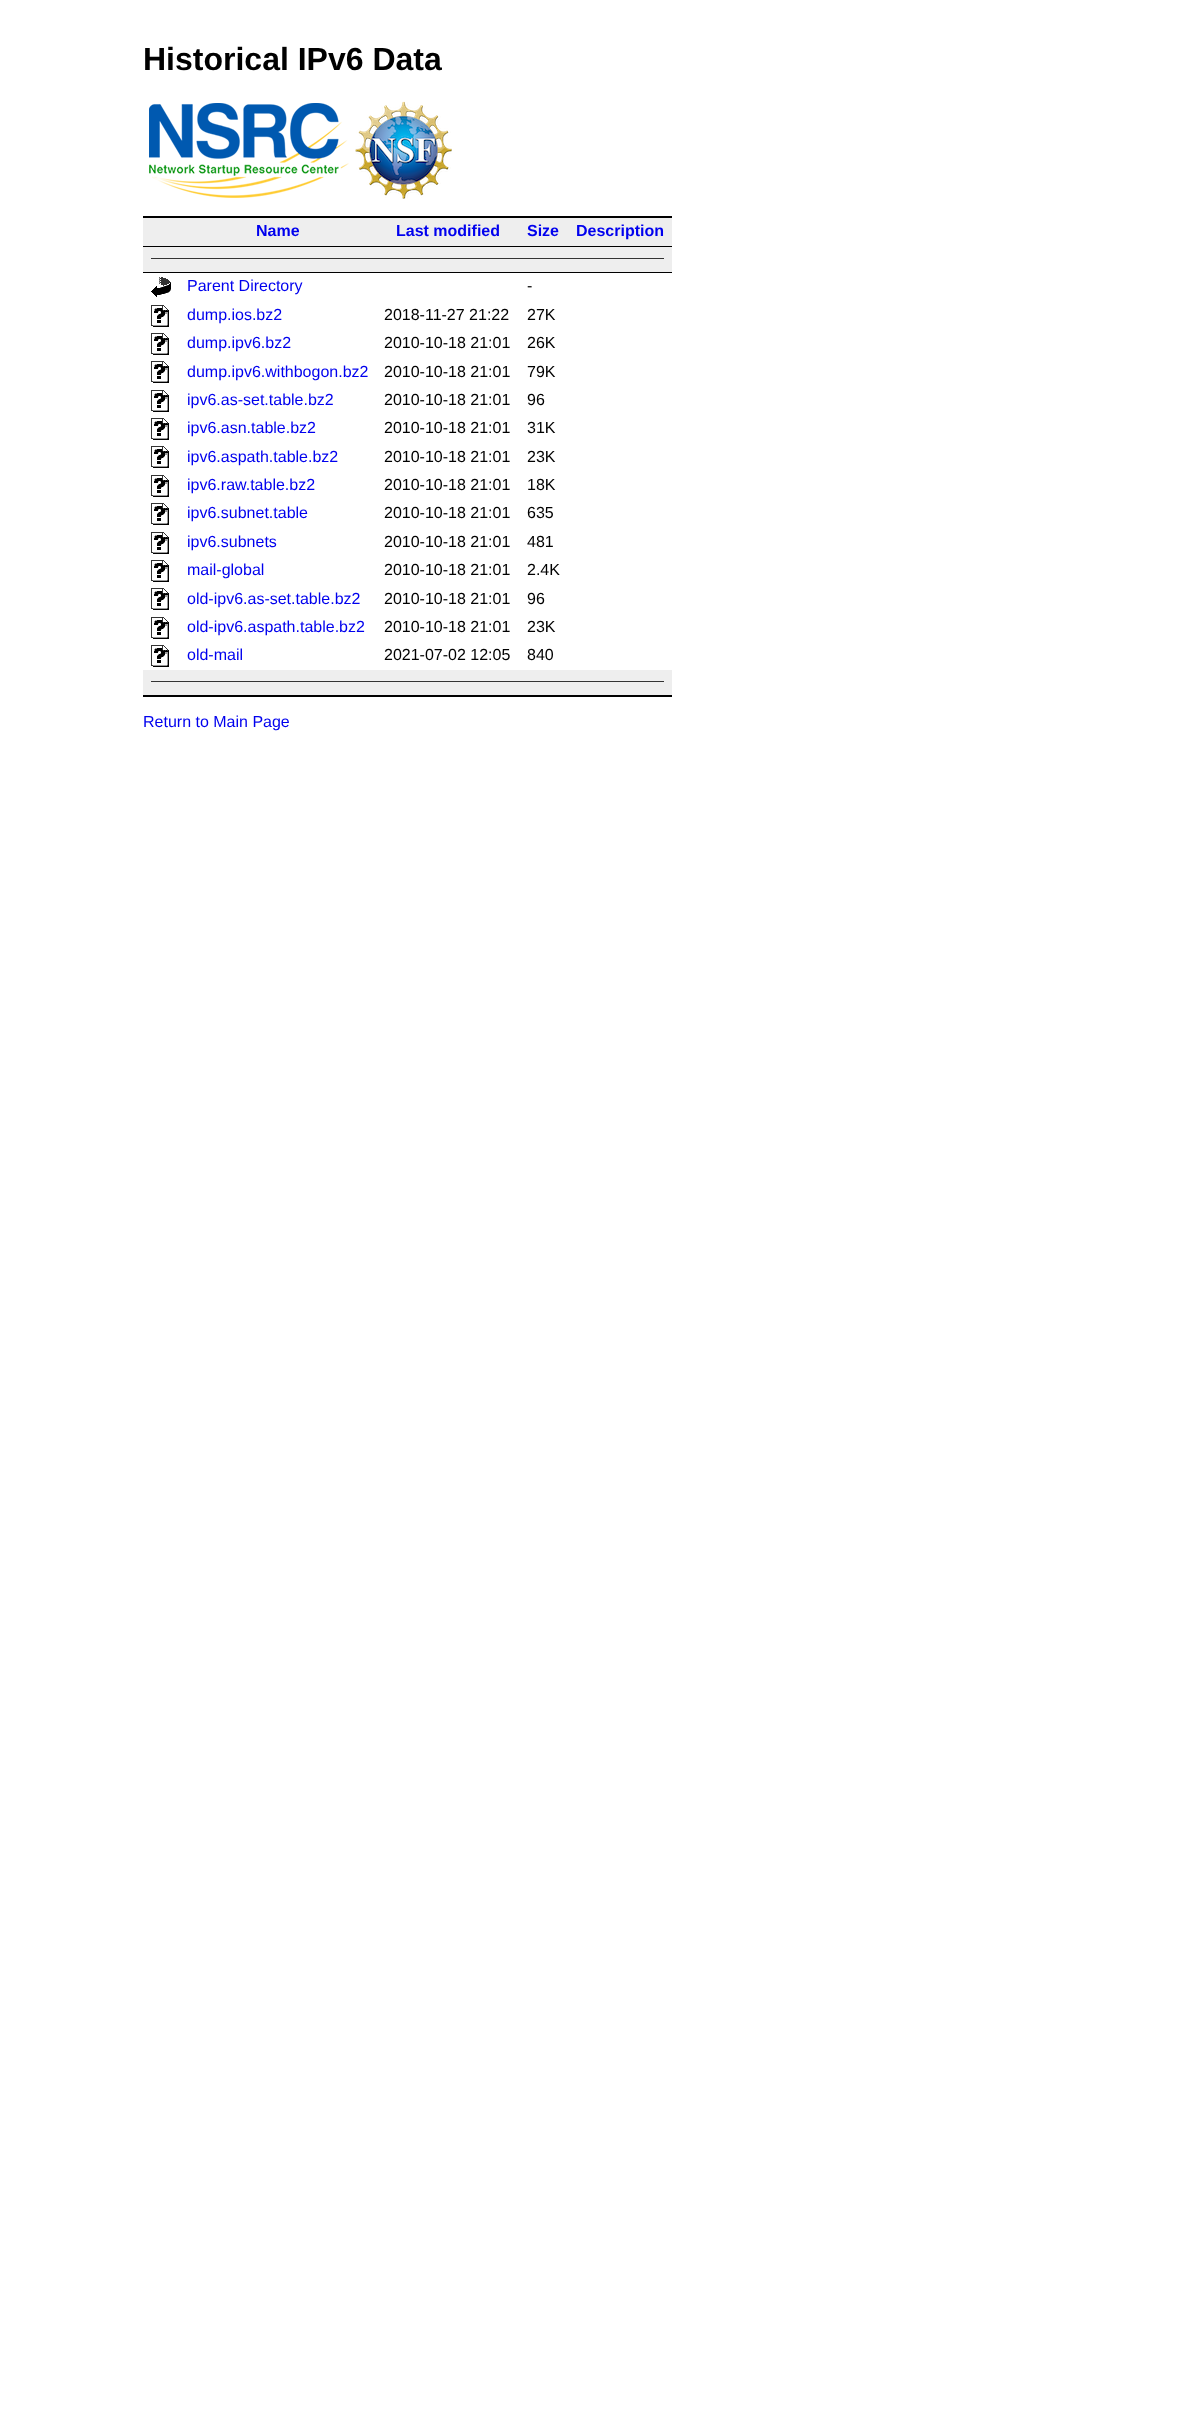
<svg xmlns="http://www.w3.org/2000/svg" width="1186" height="2421">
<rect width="100%" height="100%" fill="#fff"/>
<text x="143" y="70" style="font-family:Liberation Sans;font-size:32px;font-weight:bold;fill:#000">Historical IPv6 Data</text>
<image x="149" y="103" width="200" height="95" href="media/1.png"/>
<image x="355" y="101" width="97" height="98" href="media/2.png"/>
<rect x="143" y="216" width="529" height="2" fill="#000"/>
<rect x="143" y="695" width="529" height="2" fill="#000"/>
<rect x="143" y="218" width="529" height="28" fill="#eee"/>
<text x="256" y="236" style="font-family:Liberation Sans;font-size:16px;font-weight:bold;fill:#00e">Name</text>
<text x="396" y="236" style="font-family:Liberation Sans;font-size:16px;font-weight:bold;fill:#00e">Last modified</text>
<text x="527" y="236" style="font-family:Liberation Sans;font-size:16px;font-weight:bold;fill:#00e">Size</text>
<rect x="143" y="246" width="529" height="1" fill="#000"/>
<text x="576" y="236" style="font-family:Liberation Sans;font-size:16px;font-weight:bold;fill:#00e">Description</text>
<rect x="143" y="247" width="529" height="25" fill="#eee"/>
<rect x="143" y="272" width="529" height="1" fill="#000"/>
<rect x="151" y="258" width="513" height="1" fill="#333"/>
<image x="151" y="277" width="20" height="20" href="media/3.png"/>
<text x="187" y="291" style="font-family:Liberation Sans;font-size:16px;fill:#00e">Parent Directory</text>
<text x="527" y="291" style="font-family:Liberation Sans;font-size:16px;fill:#000">-</text>
<image x="151" y="305" width="18" height="22" href="media/4.png"/>
<text x="187" y="320" style="font-family:Liberation Sans;font-size:16px;fill:#00e">dump.ios.bz2</text>
<text x="384" y="320" style="font-family:Liberation Sans;font-size:16px;fill:#000">2018-11-27 21:22</text>
<text x="527" y="320" style="font-family:Liberation Sans;font-size:16px;fill:#000">27K</text>
<image x="151" y="333" width="18" height="22" href="media/4.png"/>
<text x="187" y="348" style="font-family:Liberation Sans;font-size:16px;fill:#00e">dump.ipv6.bz2</text>
<text x="384" y="348" style="font-family:Liberation Sans;font-size:16px;fill:#000">2010-10-18 21:01</text>
<text x="527" y="348" style="font-family:Liberation Sans;font-size:16px;fill:#000">26K</text>
<image x="151" y="361" width="18" height="22" href="media/4.png"/>
<text x="187" y="377" style="font-family:Liberation Sans;font-size:16px;fill:#00e">dump.ipv6.withbogon.bz2</text>
<text x="384" y="377" style="font-family:Liberation Sans;font-size:16px;fill:#000">2010-10-18 21:01</text>
<text x="527" y="377" style="font-family:Liberation Sans;font-size:16px;fill:#000">79K</text>
<image x="151" y="390" width="18" height="22" href="media/4.png"/>
<text x="187" y="405" style="font-family:Liberation Sans;font-size:16px;fill:#00e">ipv6.as-set.table.bz2</text>
<text x="384" y="405" style="font-family:Liberation Sans;font-size:16px;fill:#000">2010-10-18 21:01</text>
<text x="527" y="405" style="font-family:Liberation Sans;font-size:16px;fill:#000">96</text>
<image x="151" y="418" width="18" height="22" href="media/4.png"/>
<text x="187" y="433" style="font-family:Liberation Sans;font-size:16px;fill:#00e">ipv6.asn.table.bz2</text>
<text x="384" y="433" style="font-family:Liberation Sans;font-size:16px;fill:#000">2010-10-18 21:01</text>
<text x="527" y="433" style="font-family:Liberation Sans;font-size:16px;fill:#000">31K</text>
<image x="151" y="446" width="18" height="22" href="media/4.png"/>
<text x="187" y="462" style="font-family:Liberation Sans;font-size:16px;fill:#00e">ipv6.aspath.table.bz2</text>
<text x="384" y="462" style="font-family:Liberation Sans;font-size:16px;fill:#000">2010-10-18 21:01</text>
<text x="527" y="462" style="font-family:Liberation Sans;font-size:16px;fill:#000">23K</text>
<image x="151" y="475" width="18" height="22" href="media/4.png"/>
<text x="187" y="490" style="font-family:Liberation Sans;font-size:16px;fill:#00e">ipv6.raw.table.bz2</text>
<text x="384" y="490" style="font-family:Liberation Sans;font-size:16px;fill:#000">2010-10-18 21:01</text>
<text x="527" y="490" style="font-family:Liberation Sans;font-size:16px;fill:#000">18K</text>
<image x="151" y="503" width="18" height="22" href="media/4.png"/>
<text x="187" y="518" style="font-family:Liberation Sans;font-size:16px;fill:#00e">ipv6.subnet.table</text>
<text x="384" y="518" style="font-family:Liberation Sans;font-size:16px;fill:#000">2010-10-18 21:01</text>
<text x="527" y="518" style="font-family:Liberation Sans;font-size:16px;fill:#000">635</text>
<image x="151" y="532" width="18" height="22" href="media/4.png"/>
<text x="187" y="547" style="font-family:Liberation Sans;font-size:16px;fill:#00e">ipv6.subnets</text>
<text x="384" y="547" style="font-family:Liberation Sans;font-size:16px;fill:#000">2010-10-18 21:01</text>
<text x="527" y="547" style="font-family:Liberation Sans;font-size:16px;fill:#000">481</text>
<image x="151" y="560" width="18" height="22" href="media/4.png"/>
<text x="187" y="575" style="font-family:Liberation Sans;font-size:16px;fill:#00e">mail-global</text>
<text x="384" y="575" style="font-family:Liberation Sans;font-size:16px;fill:#000">2010-10-18 21:01</text>
<text x="527" y="575" style="font-family:Liberation Sans;font-size:16px;fill:#000">2.4K</text>
<image x="151" y="588" width="18" height="22" href="media/4.png"/>
<text x="187" y="604" style="font-family:Liberation Sans;font-size:16px;fill:#00e">old-ipv6.as-set.table.bz2</text>
<text x="384" y="604" style="font-family:Liberation Sans;font-size:16px;fill:#000">2010-10-18 21:01</text>
<text x="527" y="604" style="font-family:Liberation Sans;font-size:16px;fill:#000">96</text>
<image x="151" y="617" width="18" height="22" href="media/4.png"/>
<text x="187" y="632" style="font-family:Liberation Sans;font-size:16px;fill:#00e">old-ipv6.aspath.table.bz2</text>
<text x="384" y="632" style="font-family:Liberation Sans;font-size:16px;fill:#000">2010-10-18 21:01</text>
<text x="527" y="632" style="font-family:Liberation Sans;font-size:16px;fill:#000">23K</text>
<image x="151" y="645" width="18" height="22" href="media/4.png"/>
<text x="187" y="660" style="font-family:Liberation Sans;font-size:16px;fill:#00e">old-mail</text>
<text x="384" y="660" style="font-family:Liberation Sans;font-size:16px;fill:#000">2021-07-02 12:05</text>
<text x="527" y="660" style="font-family:Liberation Sans;font-size:16px;fill:#000">840</text>
<rect x="143" y="670" width="529" height="25" fill="#eee"/>
<rect x="151" y="681" width="513" height="1" fill="#333"/>
<text x="143" y="727" style="font-family:Liberation Sans;font-size:16px;fill:#00e">Return to Main Page</text>
</svg>
